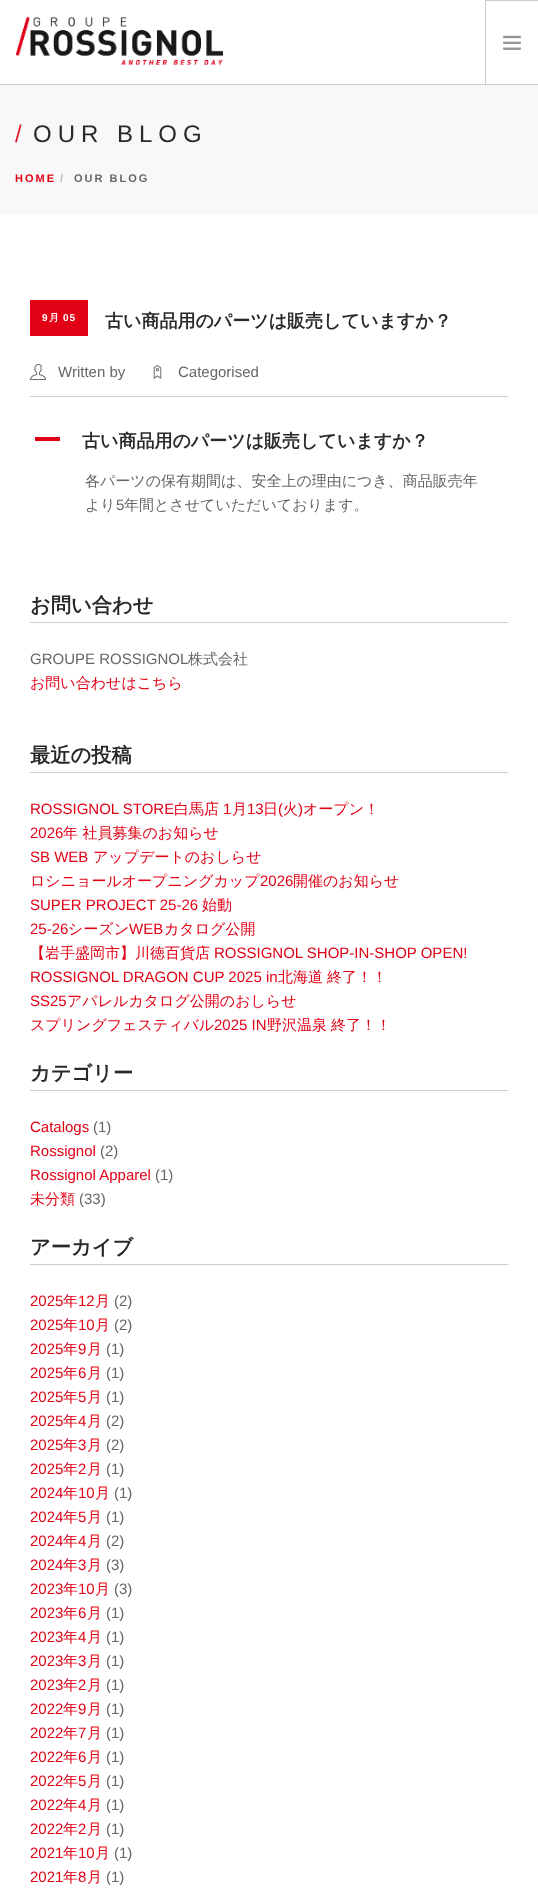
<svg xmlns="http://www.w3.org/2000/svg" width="538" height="1888">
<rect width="100%" height="100%" fill="#fff"/>
<rect y="84" width="538" height="1" fill="#ccc"/>
<image x="16" y="16" width="207" height="49" href="media/1.png"/>
<rect x="485" width="53" height="1" fill="#ccc"/>
<rect x="485" width="1" height="84" fill="#ccc"/>
<image x="503" y="35" width="18" height="15" href="media/2.png"/>
<rect y="85" width="538" height="130" fill="#f8f8f8"/>
<text x="15" y="142" style="font-family:Liberation Sans;font-size:24px;letter-spacing:6px;fill:#e21a2f">/</text>
<text x="33" y="142" style="font-family:Liberation Sans;font-size:24px;letter-spacing:6px;fill:#292929">OUR BLOG</text>
<text x="15" y="182" style="font-family:Liberation Sans;font-size:11px;font-weight:bold;letter-spacing:2px;fill:#e20115">HOME</text>
<text x="60" y="182" style="font-family:Liberation Sans;font-size:11px;font-weight:bold;letter-spacing:2px;fill:#bbb">/</text>
<text x="74" y="182" style="font-family:Liberation Sans;font-size:11px;font-weight:bold;letter-spacing:2px;fill:#666">OUR BLOG</text>
<rect x="30" y="300" width="58" height="36" fill="#e20115"/>
<text x="42" y="321" style="font-family:Liberation Sans;font-size:10px;font-weight:bold;letter-spacing:1px;fill:#fff">9</text>
<text x="49" y="321" style="font-family:WenQuanYi Zen Hei;font-size:10px;font-weight:bold;letter-spacing:1px;fill:#fff">月</text>
<text x="63" y="321" style="font-family:Liberation Sans;font-size:10px;font-weight:bold;letter-spacing:1px;fill:#fff">05</text>
<text x="105" y="327" style="font-family:WenQuanYi Zen Hei;font-size:18px;font-weight:bold;fill:#292929">古い商品用のパーツは販売していますか？</text>
<image x="30" y="364" width="16" height="16" href="media/3.png"/>
<text x="58" y="377" style="font-family:Liberation Sans;font-size:15px;fill:#666">Written by</text>
<image x="153" y="365" width="9" height="14" href="media/4.png"/>
<text x="178" y="377" style="font-family:Liberation Sans;font-size:15px;fill:#666">Categorised</text>
<rect x="30" y="396" width="478" height="1" fill="#ccc"/>
<rect x="35" y="437" width="25" height="4" fill="#e20115"/>
<text x="82" y="447" style="font-family:WenQuanYi Zen Hei;font-size:18px;font-weight:bold;fill:#292929">古い商品用のパーツは販売していますか？</text>
<text x="85" y="486" style="font-family:WenQuanYi Zen Hei;font-size:15px;font-weight:500;fill:#666">各パーツの保有期間は、安全上の理由につき、商品販売年</text>
<text x="85" y="510" style="font-family:WenQuanYi Zen Hei;font-size:15px;font-weight:500;fill:#666">より</text>
<text x="116" y="510" style="font-family:Liberation Sans;font-size:15px;fill:#666">5</text>
<text x="124" y="510" style="font-family:WenQuanYi Zen Hei;font-size:15px;font-weight:500;fill:#666">年間とさせていただいております。</text>
<text x="30" y="612" style="font-family:WenQuanYi Zen Hei;font-size:20.25px;font-weight:bold;fill:#292929">お問い合わせ</text>
<rect x="30" y="622" width="478" height="1" fill="#ccc"/>
<text x="30" y="664" style="font-family:Liberation Sans;font-size:15px;fill:#666">GROUPE ROSSIGNOL</text>
<text x="188" y="664" style="font-family:WenQuanYi Zen Hei;font-size:15px;font-weight:500;fill:#666">株式会社</text>
<text x="30" y="688" style="font-family:WenQuanYi Zen Hei;font-size:15px;font-weight:500;fill:#e20115">お問い合わせはこちら</text>
<text x="30" y="762" style="font-family:WenQuanYi Zen Hei;font-size:20.25px;font-weight:bold;fill:#292929">最近の投稿</text>
<rect x="30" y="772" width="478" height="1" fill="#ccc"/>
<text x="30" y="814" style="font-family:Liberation Sans;font-size:15px;fill:#e20115">ROSSIGNOL STORE</text>
<text x="174" y="814" style="font-family:WenQuanYi Zen Hei;font-size:15px;font-weight:500;fill:#e20115">白馬店</text>
<text x="223" y="814" style="font-family:Liberation Sans;font-size:15px;fill:#e20115">1</text>
<text x="232" y="814" style="font-family:WenQuanYi Zen Hei;font-size:15px;font-weight:500;fill:#e20115">月</text>
<text x="247" y="814" style="font-family:Liberation Sans;font-size:15px;fill:#e20115">13</text>
<text x="263" y="814" style="font-family:WenQuanYi Zen Hei;font-size:15px;font-weight:500;fill:#e20115">日</text>
<text x="278" y="814" style="font-family:Liberation Sans;font-size:15px;fill:#e20115">(</text>
<text x="283" y="814" style="font-family:WenQuanYi Zen Hei;font-size:15px;font-weight:500;fill:#e20115">火</text>
<text x="298" y="814" style="font-family:Liberation Sans;font-size:15px;fill:#e20115">)</text>
<text x="303" y="814" style="font-family:WenQuanYi Zen Hei;font-size:15px;font-weight:500;fill:#e20115">オープン！</text>
<text x="30" y="838" style="font-family:Liberation Sans;font-size:15px;fill:#e20115">2026</text>
<text x="63" y="838" style="font-family:WenQuanYi Zen Hei;font-size:15px;font-weight:500;fill:#e20115">年 社員募集のお知らせ</text>
<text x="30" y="862" style="font-family:Liberation Sans;font-size:15px;fill:#e20115">SB WEB</text>
<text x="93" y="862" style="font-family:WenQuanYi Zen Hei;font-size:15px;font-weight:500;fill:#e20115">アップデートのおしらせ</text>
<text x="30" y="886" style="font-family:WenQuanYi Zen Hei;font-size:15px;font-weight:500;fill:#e20115">ロシニョールオープニングカップ</text>
<text x="260" y="886" style="font-family:Liberation Sans;font-size:15px;fill:#e20115">2026</text>
<text x="293" y="886" style="font-family:WenQuanYi Zen Hei;font-size:15px;font-weight:500;fill:#e20115">開催のお知らせ</text>
<text x="30" y="910" style="font-family:Liberation Sans;font-size:15px;fill:#e20115">SUPER PROJECT 25-26</text>
<text x="202" y="910" style="font-family:WenQuanYi Zen Hei;font-size:15px;font-weight:500;fill:#e20115">始動</text>
<text x="30" y="934" style="font-family:Liberation Sans;font-size:15px;fill:#e20115">25-26</text>
<text x="68" y="934" style="font-family:WenQuanYi Zen Hei;font-size:15px;font-weight:500;fill:#e20115">シーズン</text>
<text x="129" y="934" style="font-family:Liberation Sans;font-size:15px;fill:#e20115">WEB</text>
<text x="164" y="934" style="font-family:WenQuanYi Zen Hei;font-size:15px;font-weight:500;fill:#e20115">カタログ公開</text>
<text x="30" y="958" style="font-family:WenQuanYi Zen Hei;font-size:15px;font-weight:500;fill:#e20115">【岩手盛岡市】川徳百貨店</text>
<text x="214" y="958" style="font-family:Liberation Sans;font-size:15px;fill:#e20115">ROSSIGNOL SHOP-IN-SHOP OPEN!</text>
<text x="30" y="982" style="font-family:Liberation Sans;font-size:15px;fill:#e20115">ROSSIGNOL DRAGON CUP 2025 in</text>
<text x="278" y="982" style="font-family:WenQuanYi Zen Hei;font-size:15px;font-weight:500;fill:#e20115">北海道</text>
<text x="327" y="982" style="font-family:WenQuanYi Zen Hei;font-size:15px;font-weight:500;fill:#e20115">終了！！</text>
<text x="30" y="1006" style="font-family:Liberation Sans;font-size:15px;fill:#e20115">SS25</text>
<text x="67" y="1006" style="font-family:WenQuanYi Zen Hei;font-size:15px;font-weight:500;fill:#e20115">アパレルカタログ公開のおしらせ</text>
<text x="30" y="1030" style="font-family:WenQuanYi Zen Hei;font-size:15px;font-weight:500;fill:#e20115">スプリングフェスティバル</text>
<text x="214" y="1030" style="font-family:Liberation Sans;font-size:15px;fill:#e20115">2025 IN</text>
<text x="267" y="1030" style="font-family:WenQuanYi Zen Hei;font-size:15px;font-weight:500;fill:#e20115">野沢温泉</text>
<text x="331" y="1030" style="font-family:WenQuanYi Zen Hei;font-size:15px;font-weight:500;fill:#e20115">終了！！</text>
<text x="30" y="1080" style="font-family:WenQuanYi Zen Hei;font-size:20.25px;font-weight:bold;fill:#292929">カテゴリー</text>
<rect x="30" y="1090" width="478" height="1" fill="#ccc"/>
<text x="30" y="1132" style="font-family:Liberation Sans;font-size:15px;fill:#e20115">Catalogs</text>
<text x="93" y="1132" style="font-family:Liberation Sans;font-size:15px;fill:#666">(1)</text>
<text x="30" y="1156" style="font-family:Liberation Sans;font-size:15px;fill:#e20115">Rossignol</text>
<text x="100" y="1156" style="font-family:Liberation Sans;font-size:15px;fill:#666">(2)</text>
<text x="30" y="1180" style="font-family:Liberation Sans;font-size:15px;fill:#e20115">Rossignol Apparel</text>
<text x="155" y="1180" style="font-family:Liberation Sans;font-size:15px;fill:#666">(1)</text>
<text x="30" y="1204" style="font-family:WenQuanYi Zen Hei;font-size:15px;font-weight:500;fill:#e20115">未分類</text>
<text x="79" y="1204" style="font-family:Liberation Sans;font-size:15px;fill:#666">(33)</text>
<text x="30" y="1254" style="font-family:WenQuanYi Zen Hei;font-size:20.25px;font-weight:bold;fill:#292929">アーカイブ</text>
<rect x="30" y="1264" width="478" height="1" fill="#ccc"/>
<text x="30" y="1306" style="font-family:Liberation Sans;font-size:15px;fill:#e20115">2025</text>
<text x="63" y="1306" style="font-family:WenQuanYi Zen Hei;font-size:15px;font-weight:500;fill:#e20115">年</text>
<text x="78" y="1306" style="font-family:Liberation Sans;font-size:15px;fill:#e20115">12</text>
<text x="95" y="1306" style="font-family:WenQuanYi Zen Hei;font-size:15px;font-weight:500;fill:#e20115">月</text>
<text x="114" y="1306" style="font-family:Liberation Sans;font-size:15px;fill:#666">(2)</text>
<text x="30" y="1330" style="font-family:Liberation Sans;font-size:15px;fill:#e20115">2025</text>
<text x="63" y="1330" style="font-family:WenQuanYi Zen Hei;font-size:15px;font-weight:500;fill:#e20115">年</text>
<text x="78" y="1330" style="font-family:Liberation Sans;font-size:15px;fill:#e20115">10</text>
<text x="95" y="1330" style="font-family:WenQuanYi Zen Hei;font-size:15px;font-weight:500;fill:#e20115">月</text>
<text x="114" y="1330" style="font-family:Liberation Sans;font-size:15px;fill:#666">(2)</text>
<text x="30" y="1354" style="font-family:Liberation Sans;font-size:15px;fill:#e20115">2025</text>
<text x="63" y="1354" style="font-family:WenQuanYi Zen Hei;font-size:15px;font-weight:500;fill:#e20115">年</text>
<text x="78" y="1354" style="font-family:Liberation Sans;font-size:15px;fill:#e20115">9</text>
<text x="87" y="1354" style="font-family:WenQuanYi Zen Hei;font-size:15px;font-weight:500;fill:#e20115">月</text>
<text x="106" y="1354" style="font-family:Liberation Sans;font-size:15px;fill:#666">(1)</text>
<text x="30" y="1378" style="font-family:Liberation Sans;font-size:15px;fill:#e20115">2025</text>
<text x="63" y="1378" style="font-family:WenQuanYi Zen Hei;font-size:15px;font-weight:500;fill:#e20115">年</text>
<text x="78" y="1378" style="font-family:Liberation Sans;font-size:15px;fill:#e20115">6</text>
<text x="87" y="1378" style="font-family:WenQuanYi Zen Hei;font-size:15px;font-weight:500;fill:#e20115">月</text>
<text x="106" y="1378" style="font-family:Liberation Sans;font-size:15px;fill:#666">(1)</text>
<text x="30" y="1402" style="font-family:Liberation Sans;font-size:15px;fill:#e20115">2025</text>
<text x="63" y="1402" style="font-family:WenQuanYi Zen Hei;font-size:15px;font-weight:500;fill:#e20115">年</text>
<text x="78" y="1402" style="font-family:Liberation Sans;font-size:15px;fill:#e20115">5</text>
<text x="87" y="1402" style="font-family:WenQuanYi Zen Hei;font-size:15px;font-weight:500;fill:#e20115">月</text>
<text x="106" y="1402" style="font-family:Liberation Sans;font-size:15px;fill:#666">(1)</text>
<text x="30" y="1426" style="font-family:Liberation Sans;font-size:15px;fill:#e20115">2025</text>
<text x="63" y="1426" style="font-family:WenQuanYi Zen Hei;font-size:15px;font-weight:500;fill:#e20115">年</text>
<text x="78" y="1426" style="font-family:Liberation Sans;font-size:15px;fill:#e20115">4</text>
<text x="87" y="1426" style="font-family:WenQuanYi Zen Hei;font-size:15px;font-weight:500;fill:#e20115">月</text>
<text x="106" y="1426" style="font-family:Liberation Sans;font-size:15px;fill:#666">(2)</text>
<text x="30" y="1450" style="font-family:Liberation Sans;font-size:15px;fill:#e20115">2025</text>
<text x="63" y="1450" style="font-family:WenQuanYi Zen Hei;font-size:15px;font-weight:500;fill:#e20115">年</text>
<text x="78" y="1450" style="font-family:Liberation Sans;font-size:15px;fill:#e20115">3</text>
<text x="87" y="1450" style="font-family:WenQuanYi Zen Hei;font-size:15px;font-weight:500;fill:#e20115">月</text>
<text x="106" y="1450" style="font-family:Liberation Sans;font-size:15px;fill:#666">(2)</text>
<text x="30" y="1474" style="font-family:Liberation Sans;font-size:15px;fill:#e20115">2025</text>
<text x="63" y="1474" style="font-family:WenQuanYi Zen Hei;font-size:15px;font-weight:500;fill:#e20115">年</text>
<text x="78" y="1474" style="font-family:Liberation Sans;font-size:15px;fill:#e20115">2</text>
<text x="87" y="1474" style="font-family:WenQuanYi Zen Hei;font-size:15px;font-weight:500;fill:#e20115">月</text>
<text x="106" y="1474" style="font-family:Liberation Sans;font-size:15px;fill:#666">(1)</text>
<text x="30" y="1498" style="font-family:Liberation Sans;font-size:15px;fill:#e20115">2024</text>
<text x="63" y="1498" style="font-family:WenQuanYi Zen Hei;font-size:15px;font-weight:500;fill:#e20115">年</text>
<text x="78" y="1498" style="font-family:Liberation Sans;font-size:15px;fill:#e20115">10</text>
<text x="95" y="1498" style="font-family:WenQuanYi Zen Hei;font-size:15px;font-weight:500;fill:#e20115">月</text>
<text x="114" y="1498" style="font-family:Liberation Sans;font-size:15px;fill:#666">(1)</text>
<text x="30" y="1522" style="font-family:Liberation Sans;font-size:15px;fill:#e20115">2024</text>
<text x="63" y="1522" style="font-family:WenQuanYi Zen Hei;font-size:15px;font-weight:500;fill:#e20115">年</text>
<text x="78" y="1522" style="font-family:Liberation Sans;font-size:15px;fill:#e20115">5</text>
<text x="87" y="1522" style="font-family:WenQuanYi Zen Hei;font-size:15px;font-weight:500;fill:#e20115">月</text>
<text x="106" y="1522" style="font-family:Liberation Sans;font-size:15px;fill:#666">(1)</text>
<text x="30" y="1546" style="font-family:Liberation Sans;font-size:15px;fill:#e20115">2024</text>
<text x="63" y="1546" style="font-family:WenQuanYi Zen Hei;font-size:15px;font-weight:500;fill:#e20115">年</text>
<text x="78" y="1546" style="font-family:Liberation Sans;font-size:15px;fill:#e20115">4</text>
<text x="87" y="1546" style="font-family:WenQuanYi Zen Hei;font-size:15px;font-weight:500;fill:#e20115">月</text>
<text x="106" y="1546" style="font-family:Liberation Sans;font-size:15px;fill:#666">(2)</text>
<text x="30" y="1570" style="font-family:Liberation Sans;font-size:15px;fill:#e20115">2024</text>
<text x="63" y="1570" style="font-family:WenQuanYi Zen Hei;font-size:15px;font-weight:500;fill:#e20115">年</text>
<text x="78" y="1570" style="font-family:Liberation Sans;font-size:15px;fill:#e20115">3</text>
<text x="87" y="1570" style="font-family:WenQuanYi Zen Hei;font-size:15px;font-weight:500;fill:#e20115">月</text>
<text x="106" y="1570" style="font-family:Liberation Sans;font-size:15px;fill:#666">(3)</text>
<text x="30" y="1594" style="font-family:Liberation Sans;font-size:15px;fill:#e20115">2023</text>
<text x="63" y="1594" style="font-family:WenQuanYi Zen Hei;font-size:15px;font-weight:500;fill:#e20115">年</text>
<text x="78" y="1594" style="font-family:Liberation Sans;font-size:15px;fill:#e20115">10</text>
<text x="95" y="1594" style="font-family:WenQuanYi Zen Hei;font-size:15px;font-weight:500;fill:#e20115">月</text>
<text x="114" y="1594" style="font-family:Liberation Sans;font-size:15px;fill:#666">(3)</text>
<text x="30" y="1618" style="font-family:Liberation Sans;font-size:15px;fill:#e20115">2023</text>
<text x="63" y="1618" style="font-family:WenQuanYi Zen Hei;font-size:15px;font-weight:500;fill:#e20115">年</text>
<text x="78" y="1618" style="font-family:Liberation Sans;font-size:15px;fill:#e20115">6</text>
<text x="87" y="1618" style="font-family:WenQuanYi Zen Hei;font-size:15px;font-weight:500;fill:#e20115">月</text>
<text x="106" y="1618" style="font-family:Liberation Sans;font-size:15px;fill:#666">(1)</text>
<text x="30" y="1642" style="font-family:Liberation Sans;font-size:15px;fill:#e20115">2023</text>
<text x="63" y="1642" style="font-family:WenQuanYi Zen Hei;font-size:15px;font-weight:500;fill:#e20115">年</text>
<text x="78" y="1642" style="font-family:Liberation Sans;font-size:15px;fill:#e20115">4</text>
<text x="87" y="1642" style="font-family:WenQuanYi Zen Hei;font-size:15px;font-weight:500;fill:#e20115">月</text>
<text x="106" y="1642" style="font-family:Liberation Sans;font-size:15px;fill:#666">(1)</text>
<text x="30" y="1666" style="font-family:Liberation Sans;font-size:15px;fill:#e20115">2023</text>
<text x="63" y="1666" style="font-family:WenQuanYi Zen Hei;font-size:15px;font-weight:500;fill:#e20115">年</text>
<text x="78" y="1666" style="font-family:Liberation Sans;font-size:15px;fill:#e20115">3</text>
<text x="87" y="1666" style="font-family:WenQuanYi Zen Hei;font-size:15px;font-weight:500;fill:#e20115">月</text>
<text x="106" y="1666" style="font-family:Liberation Sans;font-size:15px;fill:#666">(1)</text>
<text x="30" y="1690" style="font-family:Liberation Sans;font-size:15px;fill:#e20115">2023</text>
<text x="63" y="1690" style="font-family:WenQuanYi Zen Hei;font-size:15px;font-weight:500;fill:#e20115">年</text>
<text x="78" y="1690" style="font-family:Liberation Sans;font-size:15px;fill:#e20115">2</text>
<text x="87" y="1690" style="font-family:WenQuanYi Zen Hei;font-size:15px;font-weight:500;fill:#e20115">月</text>
<text x="106" y="1690" style="font-family:Liberation Sans;font-size:15px;fill:#666">(1)</text>
<text x="30" y="1714" style="font-family:Liberation Sans;font-size:15px;fill:#e20115">2022</text>
<text x="63" y="1714" style="font-family:WenQuanYi Zen Hei;font-size:15px;font-weight:500;fill:#e20115">年</text>
<text x="78" y="1714" style="font-family:Liberation Sans;font-size:15px;fill:#e20115">9</text>
<text x="87" y="1714" style="font-family:WenQuanYi Zen Hei;font-size:15px;font-weight:500;fill:#e20115">月</text>
<text x="106" y="1714" style="font-family:Liberation Sans;font-size:15px;fill:#666">(1)</text>
<text x="30" y="1738" style="font-family:Liberation Sans;font-size:15px;fill:#e20115">2022</text>
<text x="63" y="1738" style="font-family:WenQuanYi Zen Hei;font-size:15px;font-weight:500;fill:#e20115">年</text>
<text x="78" y="1738" style="font-family:Liberation Sans;font-size:15px;fill:#e20115">7</text>
<text x="87" y="1738" style="font-family:WenQuanYi Zen Hei;font-size:15px;font-weight:500;fill:#e20115">月</text>
<text x="106" y="1738" style="font-family:Liberation Sans;font-size:15px;fill:#666">(1)</text>
<text x="30" y="1762" style="font-family:Liberation Sans;font-size:15px;fill:#e20115">2022</text>
<text x="63" y="1762" style="font-family:WenQuanYi Zen Hei;font-size:15px;font-weight:500;fill:#e20115">年</text>
<text x="78" y="1762" style="font-family:Liberation Sans;font-size:15px;fill:#e20115">6</text>
<text x="87" y="1762" style="font-family:WenQuanYi Zen Hei;font-size:15px;font-weight:500;fill:#e20115">月</text>
<text x="106" y="1762" style="font-family:Liberation Sans;font-size:15px;fill:#666">(1)</text>
<text x="30" y="1786" style="font-family:Liberation Sans;font-size:15px;fill:#e20115">2022</text>
<text x="63" y="1786" style="font-family:WenQuanYi Zen Hei;font-size:15px;font-weight:500;fill:#e20115">年</text>
<text x="78" y="1786" style="font-family:Liberation Sans;font-size:15px;fill:#e20115">5</text>
<text x="87" y="1786" style="font-family:WenQuanYi Zen Hei;font-size:15px;font-weight:500;fill:#e20115">月</text>
<text x="106" y="1786" style="font-family:Liberation Sans;font-size:15px;fill:#666">(1)</text>
<text x="30" y="1810" style="font-family:Liberation Sans;font-size:15px;fill:#e20115">2022</text>
<text x="63" y="1810" style="font-family:WenQuanYi Zen Hei;font-size:15px;font-weight:500;fill:#e20115">年</text>
<text x="78" y="1810" style="font-family:Liberation Sans;font-size:15px;fill:#e20115">4</text>
<text x="87" y="1810" style="font-family:WenQuanYi Zen Hei;font-size:15px;font-weight:500;fill:#e20115">月</text>
<text x="106" y="1810" style="font-family:Liberation Sans;font-size:15px;fill:#666">(1)</text>
<text x="30" y="1834" style="font-family:Liberation Sans;font-size:15px;fill:#e20115">2022</text>
<text x="63" y="1834" style="font-family:WenQuanYi Zen Hei;font-size:15px;font-weight:500;fill:#e20115">年</text>
<text x="78" y="1834" style="font-family:Liberation Sans;font-size:15px;fill:#e20115">2</text>
<text x="87" y="1834" style="font-family:WenQuanYi Zen Hei;font-size:15px;font-weight:500;fill:#e20115">月</text>
<text x="106" y="1834" style="font-family:Liberation Sans;font-size:15px;fill:#666">(1)</text>
<text x="30" y="1858" style="font-family:Liberation Sans;font-size:15px;fill:#e20115">2021</text>
<text x="63" y="1858" style="font-family:WenQuanYi Zen Hei;font-size:15px;font-weight:500;fill:#e20115">年</text>
<text x="78" y="1858" style="font-family:Liberation Sans;font-size:15px;fill:#e20115">10</text>
<text x="95" y="1858" style="font-family:WenQuanYi Zen Hei;font-size:15px;font-weight:500;fill:#e20115">月</text>
<text x="114" y="1858" style="font-family:Liberation Sans;font-size:15px;fill:#666">(1)</text>
<text x="30" y="1882" style="font-family:Liberation Sans;font-size:15px;fill:#e20115">2021</text>
<text x="63" y="1882" style="font-family:WenQuanYi Zen Hei;font-size:15px;font-weight:500;fill:#e20115">年</text>
<text x="78" y="1882" style="font-family:Liberation Sans;font-size:15px;fill:#e20115">8</text>
<text x="87" y="1882" style="font-family:WenQuanYi Zen Hei;font-size:15px;font-weight:500;fill:#e20115">月</text>
<text x="106" y="1882" style="font-family:Liberation Sans;font-size:15px;fill:#666">(1)</text>
</svg>
